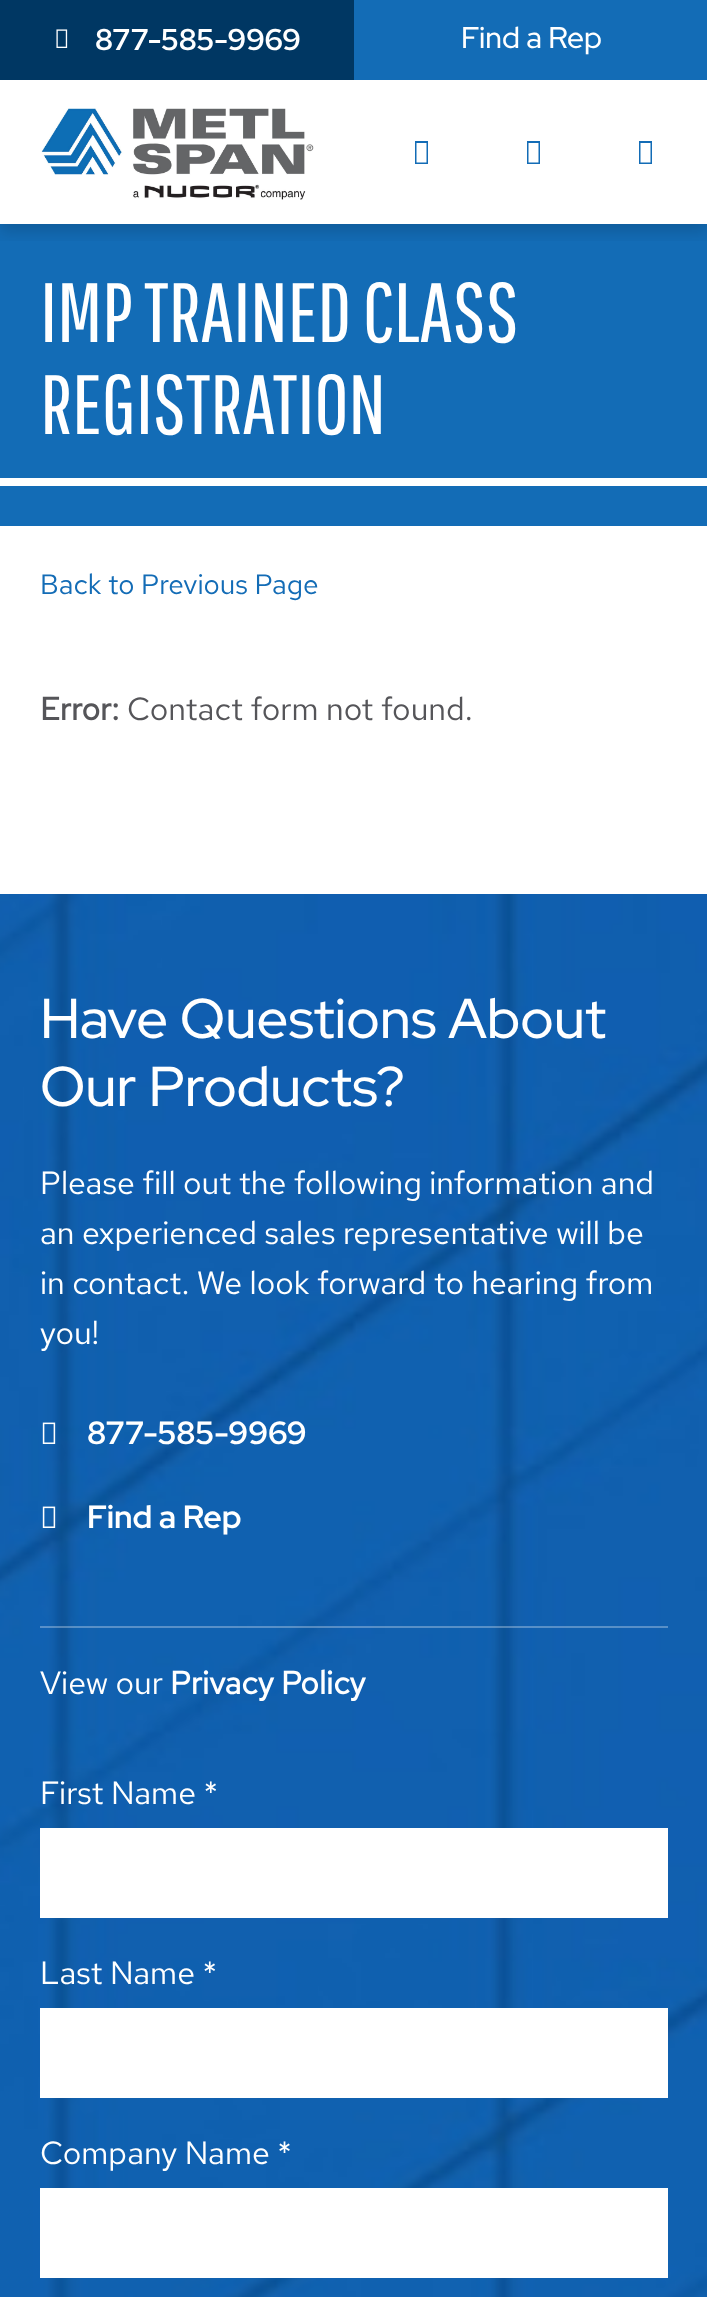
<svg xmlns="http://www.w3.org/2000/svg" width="707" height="2297">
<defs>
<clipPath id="clip1"><rect x="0" y="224" width="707" height="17"/></clipPath>
</defs>
<rect width="100%" height="100%" fill="#fff"/>
<rect y="224" width="707" height="302" fill="#136cb6"/>
<g clip-path="url(#clip1)">
<rect y="8" width="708" height="224" fill="#00000026" filter="blur(8px)"/>
</g>
<rect width="354" height="80" fill="#003763"/>
<image x="56" y="29" width="12" height="19" href="media/1.png"/>
<text x="95" y="50" style="font-family:Red Hat Display;font-size:30px;font-weight:bold;fill:#fff">877-585-9969</text>
<image x="41" y="108" width="273" height="92" href="media/2.png"/>
<rect x="354" width="353" height="80" fill="#136cb6"/>
<text x="461" y="48" style="font-family:Red Hat Display;font-size:30px;font-weight:500;fill:#fff">Find a Rep</text>
<path d="M415 164v-23h13v23zm1.5-1.5h10v-19.5h-10z" fill="#136cb6"/>
<path d="M527 164v-23h13v23zm1.5-1.5h10v-19.5h-10z" fill="#136cb6"/>
<path d="M639 164v-23h13v23zm1.5-1.5h10v-19.5h-10z" fill="#136cb6"/>
<text x="40" y="342" style="font-family:Pathway Gothic One;font-size:84px;letter-spacing:-0.4px;fill:#fff">IMP TRAINED CLASS</text>
<text x="40" y="434" style="font-family:Pathway Gothic One;font-size:84px;letter-spacing:-0.4px;fill:#fff">REGISTRATION</text>
<rect y="478" width="707" height="8" fill="#fff"/>
<text x="40" y="594" style="font-family:Red Hat Text;font-size:28px;fill:#136cb6">Back to Previous Page</text>
<text x="40" y="720" style="font-family:Red Hat Text;font-size:32px;font-weight:bold;fill:#555559">Error:</text>
<text x="127" y="720" style="font-family:Red Hat Text;font-size:32px;fill:#555559">Contact form not found.</text>
<image x="0" y="894" width="707" height="1403" href="media/3.png"/>
<text x="40" y="1038" style="font-family:Red Hat Display;font-size:56px;font-weight:500;fill:#fff">Have Questions About</text>
<text x="40" y="1106" style="font-family:Red Hat Display;font-size:56px;font-weight:500;fill:#fff">Our Products?</text>
<text x="40" y="1194" style="font-family:Red Hat Text;font-size:32px;fill:#fff">Please fill out the following information and</text>
<text x="40" y="1244" style="font-family:Red Hat Text;font-size:32px;fill:#fff">an experienced sales representative will be</text>
<text x="40" y="1294" style="font-family:Red Hat Text;font-size:32px;fill:#fff">in contact. We look forward to hearing from</text>
<text x="40" y="1344" style="font-family:Red Hat Text;font-size:32px;fill:#fff">you!</text>
<image x="42" y="1422" width="14" height="22" href="media/4.png"/>
<text x="87" y="1444" style="font-family:Red Hat Display;font-size:32px;font-weight:bold;fill:#fff">877-585-9969</text>
<image x="42" y="1506" width="14" height="22" href="media/5.png"/>
<text x="87" y="1528" style="font-family:Red Hat Display;font-size:32px;font-weight:bold;fill:#fff">Find a Rep</text>
<rect x="40" y="1626" width="628" height="2" fill="#ffffff4d"/>
<text x="40" y="1694" style="font-family:Red Hat Text;font-size:32px;fill:#fff">View our</text>
<text x="170" y="1694" style="font-family:Red Hat Text;font-size:32px;font-weight:bold;fill:#fff">Privacy Policy</text>
<text x="40" y="1804" style="font-family:Red Hat Text;font-size:32px;fill:#fff">First Name *</text>
<rect x="40" y="1828" width="628" height="90" fill="#fff"/>
<text x="40" y="1984" style="font-family:Red Hat Text;font-size:32px;fill:#fff">Last Name *</text>
<rect x="40" y="2008" width="628" height="90" fill="#fff"/>
<text x="40" y="2164" style="font-family:Red Hat Text;font-size:32px;fill:#fff">Company Name *</text>
<rect x="40" y="2188" width="628" height="90" fill="#fff"/>
</svg>
